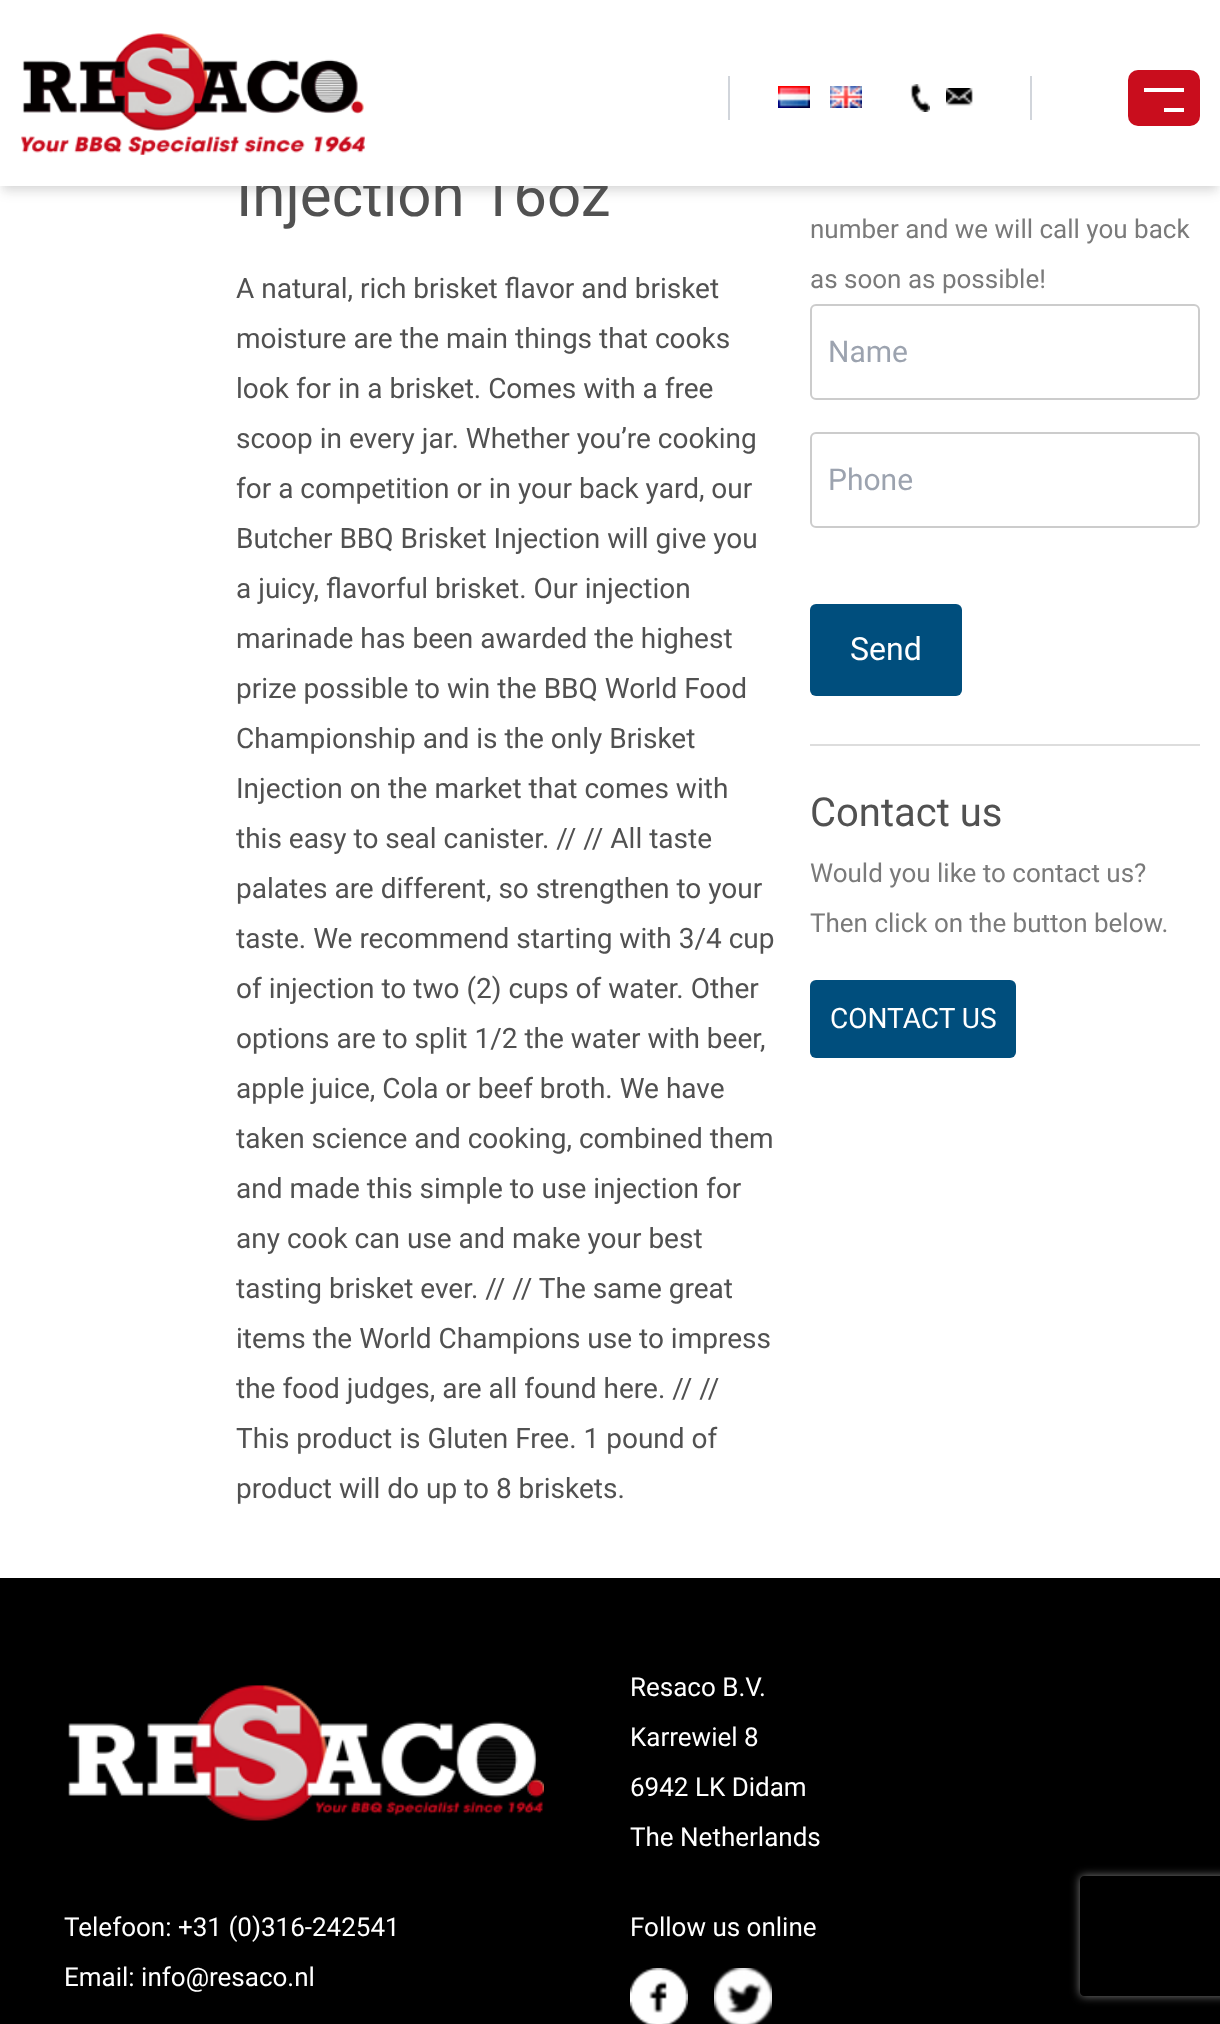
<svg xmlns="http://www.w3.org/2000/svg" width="1220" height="2024">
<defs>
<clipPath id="clip1"><path d="M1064 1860h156v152h-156zm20 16h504c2 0 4 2 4 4v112c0 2-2 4-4 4h-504c-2 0-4-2-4-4v-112c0-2 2-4 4-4z" clip-rule="evenodd"/></clipPath>
</defs>
<rect width="100%" height="100%" fill="#fff"/>
<rect x="2" y="6" width="1216" height="182" fill="#0000000f" filter="blur(4px)"/>
<rect x="2" y="10" width="1216" height="182" fill="#0000001a" filter="blur(6px)"/>
<text x="236" y="216" style="font-family:Roboto;font-size:60px;fill:#515151">Injection 16oz</text>
<rect width="1220" height="186" fill="#fff"/>
<image x="21" y="33" width="344" height="122" href="media/1.png"/>
<rect x="1030" y="76" width="2" height="44" fill="#d1d5db"/>
<rect x="728" y="76" width="2" height="44" fill="#d1d5db"/>
<image x="778" y="86" width="32" height="22" href="media/2.png"/>
<image x="830" y="86" width="32" height="22" href="media/3.png"/>
<image x="910" y="84" width="20" height="28" href="media/4.png"/>
<image x="946" y="88" width="27" height="18" href="media/5.png"/>
<rect x="1128" y="70" width="72" height="56" rx="10" fill="#c90d1d"/>
<rect x="1144" y="88" width="40" height="4" fill="#fff"/>
<rect x="1164" y="108" width="20" height="4" fill="#fff"/>
<text x="236" y="298" style="font-family:Roboto;font-size:28px;fill:#515151">A natural, rich brisket flavor and brisket</text>
<text x="236" y="348" style="font-family:Roboto;font-size:28px;fill:#515151">moisture are the main things that cooks</text>
<text x="236" y="398" style="font-family:Roboto;font-size:28px;fill:#515151">look for in a brisket. Comes with a free</text>
<text x="236" y="448" style="font-family:Roboto;font-size:28px;fill:#515151">scoop in every jar. Whether you’re cooking</text>
<text x="236" y="498" style="font-family:Roboto;font-size:28px;fill:#515151">for a competition or in your back yard, our</text>
<text x="236" y="548" style="font-family:Roboto;font-size:28px;fill:#515151">Butcher BBQ Brisket Injection will give you</text>
<text x="236" y="598" style="font-family:Roboto;font-size:28px;fill:#515151">a juicy, flavorful brisket. Our injection</text>
<text x="236" y="648" style="font-family:Roboto;font-size:28px;fill:#515151">marinade has been awarded the highest</text>
<text x="236" y="698" style="font-family:Roboto;font-size:28px;fill:#515151">prize possible to win the BBQ World Food</text>
<text x="236" y="748" style="font-family:Roboto;font-size:28px;fill:#515151">Championship and is the only Brisket</text>
<text x="236" y="798" style="font-family:Roboto;font-size:28px;fill:#515151">Injection on the market that comes with</text>
<text x="236" y="848" style="font-family:Roboto;font-size:28px;fill:#515151">this easy to seal canister. // // All taste</text>
<text x="236" y="898" style="font-family:Roboto;font-size:28px;fill:#515151">palates are different, so strengthen to your</text>
<text x="236" y="948" style="font-family:Roboto;font-size:28px;fill:#515151">taste. We recommend starting with 3/4 cup</text>
<text x="236" y="998" style="font-family:Roboto;font-size:28px;fill:#515151">of injection to two (2) cups of water. Other</text>
<text x="236" y="1048" style="font-family:Roboto;font-size:28px;fill:#515151">options are to split 1/2 the water with beer,</text>
<text x="236" y="1098" style="font-family:Roboto;font-size:28px;fill:#515151">apple juice, Cola or beef broth. We have</text>
<text x="236" y="1148" style="font-family:Roboto;font-size:28px;fill:#515151">taken science and cooking, combined them</text>
<text x="236" y="1198" style="font-family:Roboto;font-size:28px;fill:#515151">and made this simple to use injection for</text>
<text x="236" y="1248" style="font-family:Roboto;font-size:28px;fill:#515151">any cook can use and make your best</text>
<text x="236" y="1298" style="font-family:Roboto;font-size:28px;fill:#515151">tasting brisket ever. // // The same great</text>
<text x="236" y="1348" style="font-family:Roboto;font-size:28px;fill:#515151">items the World Champions use to impress</text>
<text x="236" y="1398" style="font-family:Roboto;font-size:28px;fill:#515151">the food judges, are all found here. // //</text>
<text x="236" y="1448" style="font-family:Roboto;font-size:28px;fill:#515151">This product is Gluten Free. 1 pound of</text>
<text x="236" y="1498" style="font-family:Roboto;font-size:28px;fill:#515151">product will do up to 8 briskets.</text>
<rect x="810" y="744" width="390" height="2" fill="#ddd"/>
<text x="810" y="238" style="font-family:Roboto;font-size:26px;fill:#7a7a7a">number and we will call you back</text>
<text x="810" y="288" style="font-family:Roboto;font-size:26px;fill:#7a7a7a">as soon as possible!</text>
<rect x="811" y="305" width="388" height="94" rx="5" fill="none" stroke="#ccc" stroke-width="2"/>
<text x="828" y="362" style="font-family:Roboto;font-size:30px;fill:#9ca3af">Name</text>
<rect x="811" y="433" width="388" height="94" rx="5" fill="none" stroke="#ccc" stroke-width="2"/>
<text x="828" y="490" style="font-family:Roboto;font-size:30px;fill:#9ca3af">Phone</text>
<rect y="1578" width="1220" height="446" fill="#000"/>
<g clip-path="url(#clip1)">
<rect x="1080" y="1876" width="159" height="120" rx="4" fill="#808080" filter="blur(5px)"/>
</g>
<rect x="810" y="604" width="152" height="92" rx="6" fill="#004e7d"/>
<text x="850" y="660" style="font-family:Roboto;font-size:32px;fill:#fff">Send</text>
<text x="810" y="826" style="font-family:Roboto;font-size:40px;fill:#515151">Contact us</text>
<text x="810" y="882" style="font-family:Roboto;font-size:26px;fill:#7a7a7a">Would you like to contact us?</text>
<text x="810" y="932" style="font-family:Roboto;font-size:26px;fill:#7a7a7a">Then click on the button below.</text>
<rect x="810" y="980" width="206" height="78" rx="6" fill="#004e7d"/>
<text x="830" y="1028" style="font-family:Roboto;font-size:28px;fill:#fff">CONTACT US</text>
<image x="68" y="1685" width="476" height="136" href="media/6.png"/>
<text x="630" y="1696" style="font-family:Roboto;font-size:26px;fill:#fff">Resaco B.V.</text>
<text x="630" y="1746" style="font-family:Roboto;font-size:26px;fill:#fff">Karrewiel 8</text>
<text x="630" y="1796" style="font-family:Roboto;font-size:26px;fill:#fff">6942 LK Didam</text>
<text x="630" y="1846" style="font-family:Roboto;font-size:26px;fill:#fff">The Netherlands</text>
<text x="64" y="1936" style="font-family:Roboto;font-size:26px;fill:#fff">Telefoon: +31 (0)316-242541</text>
<text x="64" y="1986" style="font-family:Roboto;font-size:26px;fill:#fff">Email: info@resaco.nl</text>
<text x="630" y="1936" style="font-family:Roboto;font-size:26px;fill:#fff">Follow us online</text>
<image x="630" y="1968" width="58" height="56" href="media/7.png"/>
<image x="714" y="1968" width="58" height="56" href="media/8.png"/>
</svg>
